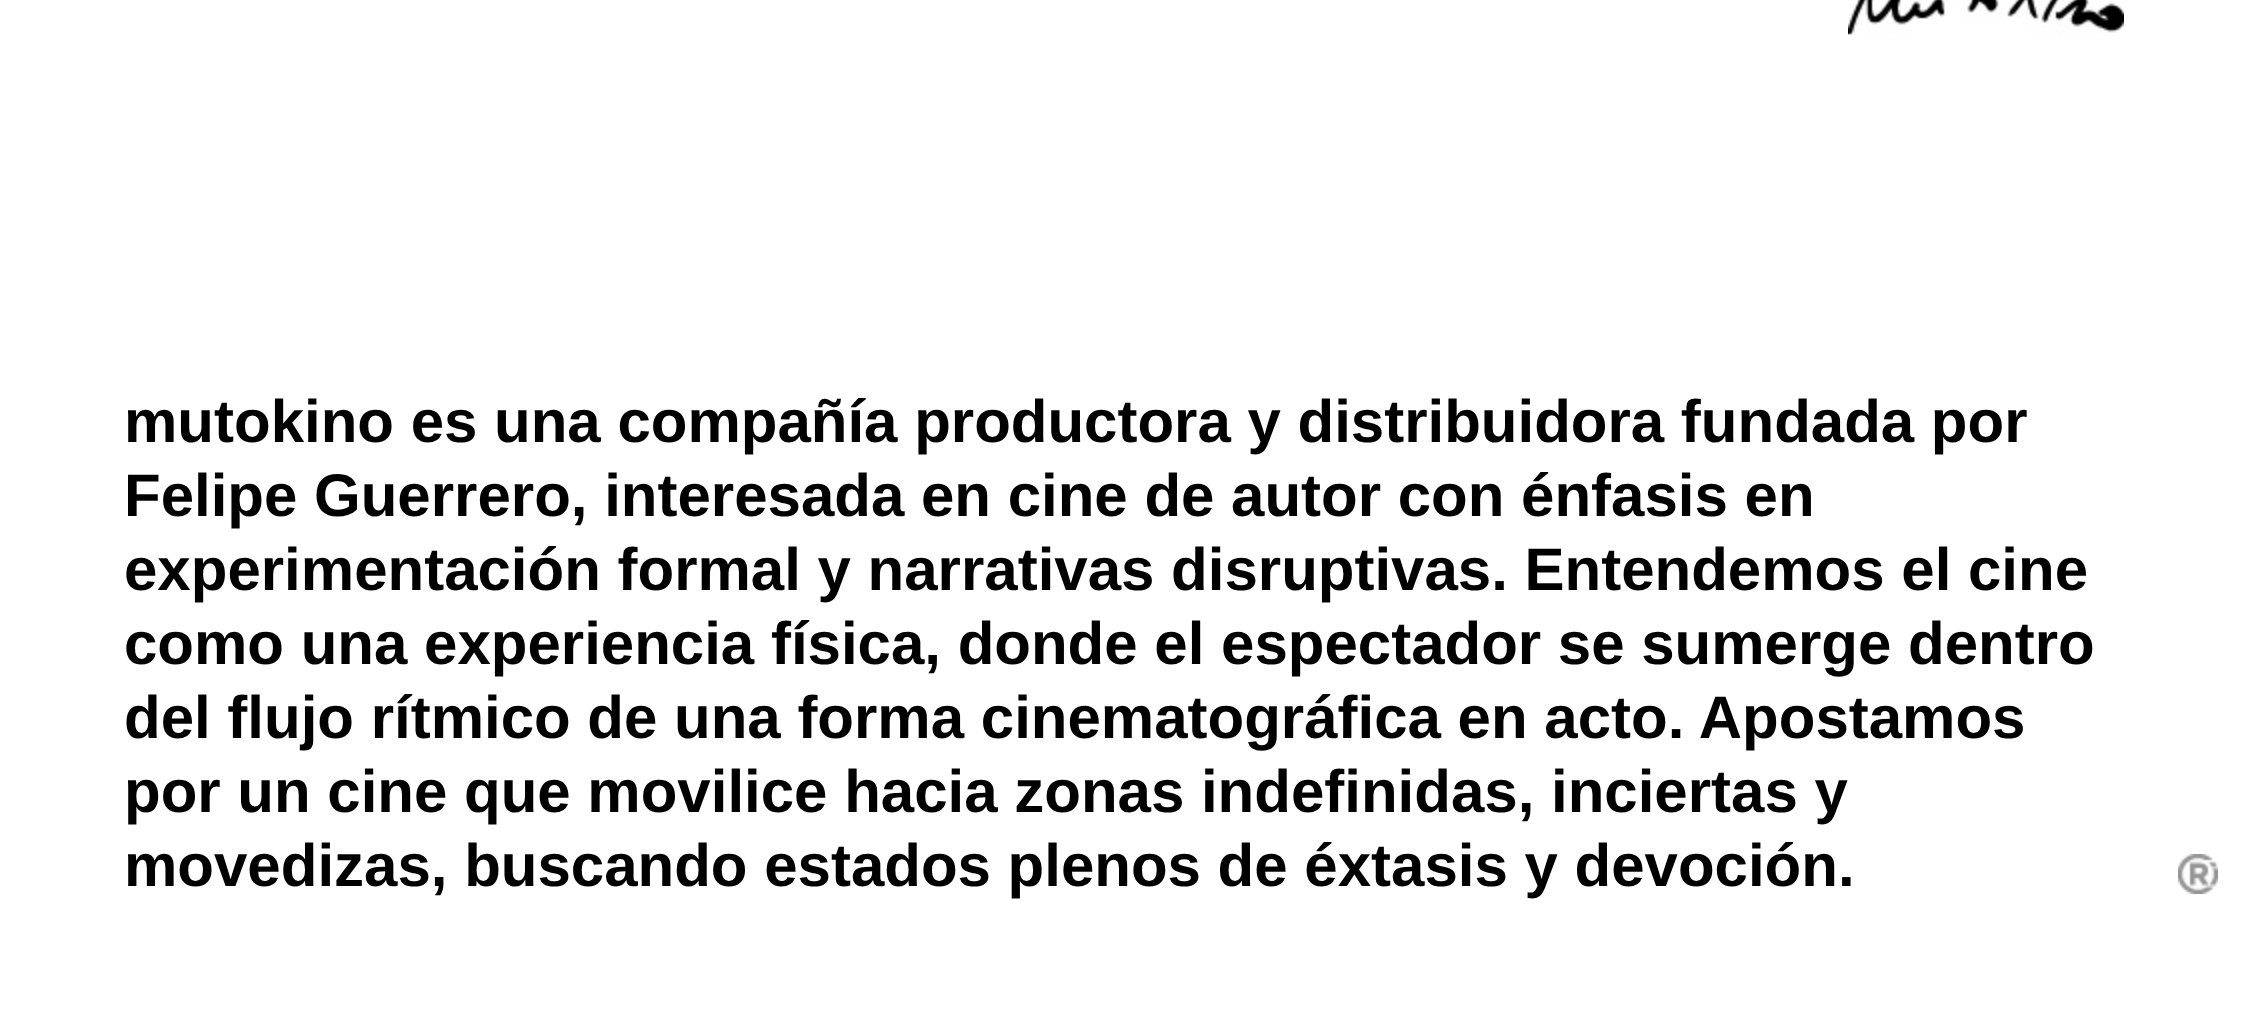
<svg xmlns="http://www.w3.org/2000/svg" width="2247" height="1017">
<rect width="100%" height="100%" fill="#fff"/>
<image x="1848" y="0" width="276" height="35" href="media/1.png"/>
<text x="124" y="442" style="font-family:Liberation Sans;font-size:60px;font-weight:bold;fill:#000">mutokino es una compañía productora y distribuidora fundada por</text>
<text x="124" y="516" style="font-family:Liberation Sans;font-size:60px;font-weight:bold;fill:#000">Felipe Guerrero, interesada en cine de autor con énfasis en</text>
<text x="124" y="590" style="font-family:Liberation Sans;font-size:60px;font-weight:bold;fill:#000">experimentación formal y narrativas disruptivas. Entendemos el cine</text>
<text x="124" y="664" style="font-family:Liberation Sans;font-size:60px;font-weight:bold;fill:#000">como una experiencia física, donde el espectador se sumerge dentro</text>
<text x="124" y="738" style="font-family:Liberation Sans;font-size:60px;font-weight:bold;fill:#000">del flujo rítmico de una forma cinematográfica en acto. Apostamos</text>
<text x="124" y="812" style="font-family:Liberation Sans;font-size:60px;font-weight:bold;fill:#000">por un cine que movilice hacia zonas indefinidas, inciertas y</text>
<text x="124" y="886" style="font-family:Liberation Sans;font-size:60px;font-weight:bold;fill:#000">movedizas, buscando estados plenos de éxtasis y devoción.</text>
<image x="2178" y="854" width="40" height="40" href="media/2.png"/>
</svg>
